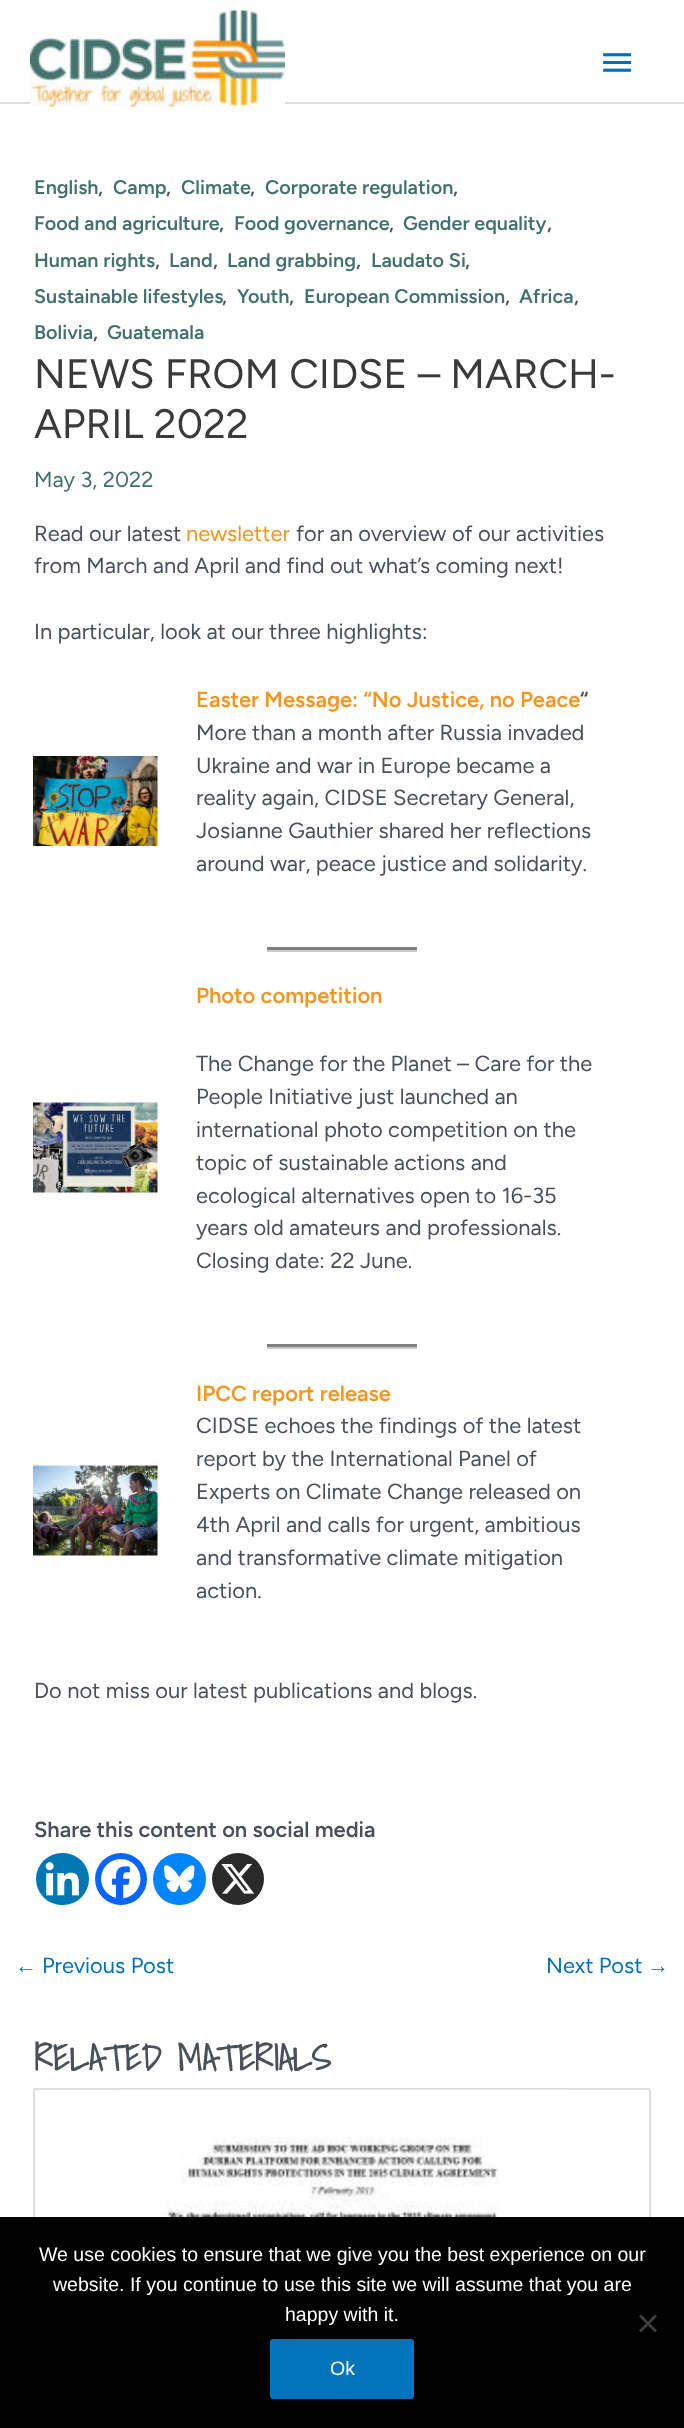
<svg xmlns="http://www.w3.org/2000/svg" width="684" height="2428">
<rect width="100%" height="100%" fill="#fff"/>
<rect y="102" width="684" height="2" fill="#ddd"/>
<image x="30" y="10" width="255" height="97" href="media/1.png"/>
<image x="603" y="53" width="29" height="19" href="media/2.png"/>
<text x="34" y="194" style="font-family:Figtree;font-size:19.75px;font-weight:600;fill:#42706d">English</text>
<text x="98" y="194" style="font-family:Figtree;font-size:19.75px;font-weight:600;fill:#4b4f58">,</text>
<text x="113" y="194" style="font-family:Figtree;font-size:19.75px;font-weight:600;fill:#42706d">Camp</text>
<text x="166" y="194" style="font-family:Figtree;font-size:19.75px;font-weight:600;fill:#4b4f58">,</text>
<text x="181" y="194" style="font-family:Figtree;font-size:19.75px;font-weight:600;fill:#42706d">Climate</text>
<text x="250" y="194" style="font-family:Figtree;font-size:19.75px;font-weight:600;fill:#4b4f58">,</text>
<text x="265" y="194" style="font-family:Figtree;font-size:19.75px;font-weight:600;fill:#42706d">Corporate regulation</text>
<text x="453" y="194" style="font-family:Figtree;font-size:19.75px;font-weight:600;fill:#4b4f58">,</text>
<text x="34" y="230" style="font-family:Figtree;font-size:19.75px;font-weight:600;fill:#42706d">Food and agriculture</text>
<text x="219" y="230" style="font-family:Figtree;font-size:19.75px;font-weight:600;fill:#4b4f58">,</text>
<text x="234" y="230" style="font-family:Figtree;font-size:19.75px;font-weight:600;fill:#42706d">Food governance</text>
<text x="389" y="230" style="font-family:Figtree;font-size:19.75px;font-weight:600;fill:#4b4f58">,</text>
<text x="403" y="230" style="font-family:Figtree;font-size:19.75px;font-weight:600;fill:#42706d">Gender equality</text>
<text x="547" y="230" style="font-family:Figtree;font-size:19.75px;font-weight:600;fill:#4b4f58">,</text>
<text x="34" y="267" style="font-family:Figtree;font-size:19.75px;font-weight:600;fill:#42706d">Human rights</text>
<text x="155" y="267" style="font-family:Figtree;font-size:19.75px;font-weight:600;fill:#4b4f58">,</text>
<text x="169" y="267" style="font-family:Figtree;font-size:19.75px;font-weight:600;fill:#42706d">Land</text>
<text x="213" y="267" style="font-family:Figtree;font-size:19.75px;font-weight:600;fill:#4b4f58">,</text>
<text x="227" y="267" style="font-family:Figtree;font-size:19.75px;font-weight:600;fill:#42706d">Land grabbing</text>
<text x="356" y="267" style="font-family:Figtree;font-size:19.75px;font-weight:600;fill:#4b4f58">,</text>
<text x="371" y="267" style="font-family:Figtree;font-size:19.75px;font-weight:600;fill:#42706d">Laudato Si</text>
<text x="465" y="267" style="font-family:Figtree;font-size:19.75px;font-weight:600;fill:#4b4f58">,</text>
<text x="34" y="303" style="font-family:Figtree;font-size:19.75px;font-weight:600;fill:#42706d">Sustainable lifestyles</text>
<text x="222" y="303" style="font-family:Figtree;font-size:19.75px;font-weight:600;fill:#4b4f58">,</text>
<text x="237" y="303" style="font-family:Figtree;font-size:19.75px;font-weight:600;fill:#42706d">Youth</text>
<text x="289" y="303" style="font-family:Figtree;font-size:19.75px;font-weight:600;fill:#4b4f58">,</text>
<text x="304" y="303" style="font-family:Figtree;font-size:19.75px;font-weight:600;fill:#42706d">European Commission</text>
<text x="505" y="303" style="font-family:Figtree;font-size:19.75px;font-weight:600;fill:#4b4f58">,</text>
<text x="519" y="303" style="font-family:Figtree;font-size:19.75px;font-weight:600;fill:#42706d">Africa</text>
<text x="574" y="303" style="font-family:Figtree;font-size:19.75px;font-weight:600;fill:#4b4f58">,</text>
<text x="34" y="339" style="font-family:Figtree;font-size:19.75px;font-weight:600;fill:#42706d">Bolivia</text>
<text x="93" y="339" style="font-family:Figtree;font-size:19.75px;font-weight:600;fill:#4b4f58">,</text>
<text x="107" y="339" style="font-family:Figtree;font-size:19.75px;font-weight:600;fill:#42706d">Guatemala</text>
<text x="34" y="388" style="font-family:Figtree;font-size:41px;fill:#3a3a3a">NEWS FROM CIDSE – MARCH-</text>
<text x="34" y="438" style="font-family:Figtree;font-size:41px;fill:#3a3a3a">APRIL 2022</text>
<text x="34" y="487" style="font-family:Figtree;font-size:21.9px;fill:#42706d">May 3, 2022</text>
<text x="34" y="541" style="font-family:Figtree;font-size:21.9px;fill:#4b4f58">Read our latest</text>
<text x="186" y="541" style="font-family:Figtree;font-size:21.9px;fill:#f7941d">newsletter</text>
<text x="296" y="541" style="font-family:Figtree;font-size:21.9px;fill:#4b4f58">for an overview of our activities</text>
<text x="34" y="573" style="font-family:Figtree;font-size:21.9px;fill:#4b4f58">from March and April and find out what’s coming next!</text>
<text x="34" y="639" style="font-family:Figtree;font-size:21.9px;fill:#4b4f58">In particular, look at our three highlights:</text>
<image x="33" y="756" width="125" height="90" href="media/3.png"/>
<text x="196" y="707" style="font-family:Figtree;font-size:21.9px;font-weight:600;fill:#f7941d">Easter Message: “No Justice, no Peace</text>
<text x="580" y="707" style="font-family:Figtree;font-size:21.9px;font-weight:600;fill:#4b4f58">“</text>
<text x="196" y="740" style="font-family:Figtree;font-size:21.9px;fill:#4b4f58">More than a month after Russia invaded</text>
<text x="196" y="773" style="font-family:Figtree;font-size:21.9px;fill:#4b4f58">Ukraine and war in Europe became a</text>
<text x="196" y="805" style="font-family:Figtree;font-size:21.9px;fill:#4b4f58">reality again, CIDSE Secretary General,</text>
<text x="196" y="838" style="font-family:Figtree;font-size:21.9px;fill:#4b4f58">Josianne Gauthier shared her reflections</text>
<text x="196" y="871" style="font-family:Figtree;font-size:21.9px;fill:#4b4f58">around war, peace justice and solidarity.</text>
<rect x="267" y="950" width="150" height="2" fill="#ccc"/>
<rect x="267" y="947" width="150" height="3" fill="#808080"/>
<image x="33" y="1102" width="125" height="91" href="media/4.png"/>
<text x="196" y="1003" style="font-family:Figtree;font-size:21.9px;font-weight:600;fill:#f7941d">Photo competition</text>
<text x="196" y="1071" style="font-family:Figtree;font-size:21.9px;fill:#4b4f58">The Change for the Planet – Care for the</text>
<text x="196" y="1104" style="font-family:Figtree;font-size:21.9px;fill:#4b4f58">People Initiative just launched an</text>
<text x="196" y="1137" style="font-family:Figtree;font-size:21.9px;fill:#4b4f58">international photo competition on the</text>
<text x="196" y="1170" style="font-family:Figtree;font-size:21.9px;fill:#4b4f58">topic of sustainable actions and</text>
<text x="196" y="1203" style="font-family:Figtree;font-size:21.9px;fill:#4b4f58">ecological alternatives open to 16-35</text>
<text x="196" y="1235" style="font-family:Figtree;font-size:21.9px;fill:#4b4f58">years old amateurs and professionals.</text>
<text x="196" y="1268" style="font-family:Figtree;font-size:21.9px;fill:#4b4f58">Closing date: 22 June.</text>
<rect x="267" y="1347" width="150" height="2" fill="#ccc"/>
<rect x="267" y="1344" width="150" height="3" fill="#808080"/>
<image x="33" y="1465" width="125" height="91" href="media/5.png"/>
<text x="196" y="1401" style="font-family:Figtree;font-size:21.9px;font-weight:600;fill:#f7941d">IPCC report release</text>
<text x="196" y="1433" style="font-family:Figtree;font-size:21.9px;fill:#4b4f58">CIDSE echoes the findings of the latest</text>
<text x="196" y="1466" style="font-family:Figtree;font-size:21.9px;fill:#4b4f58">report by the International Panel of</text>
<text x="196" y="1499" style="font-family:Figtree;font-size:21.9px;fill:#4b4f58">Experts on Climate Change released on</text>
<text x="196" y="1532" style="font-family:Figtree;font-size:21.9px;fill:#4b4f58">4th April and calls for urgent, ambitious</text>
<text x="196" y="1565" style="font-family:Figtree;font-size:21.9px;fill:#4b4f58">and transformative climate mitigation</text>
<text x="196" y="1598" style="font-family:Figtree;font-size:21.9px;fill:#4b4f58">action.</text>
<text x="34" y="1698" style="font-family:Figtree;font-size:21.9px;fill:#4b4f58">Do not miss our latest publications and blogs.</text>
<text x="34" y="1837" style="font-family:Figtree;font-size:21.9px;font-weight:600;fill:#4b4f58">Share this content on social media</text>
<rect x="36" y="1853" width="53" height="52" rx="26" fill="#0077b5"/>
<image x="45" y="1862" width="34" height="34" href="media/6.png"/>
<circle cx="121" cy="1879" r="26" fill="#0765fe"/>
<image x="101" y="1859" width="40" height="40" href="media/7.png"/>
<rect x="153" y="1853" width="53" height="52" rx="26" fill="#0085ff"/>
<image x="164" y="1865" width="31" height="28" href="media/8.png"/>
<circle cx="238" cy="1879" r="26" fill="#2a2a2a"/>
<image x="221" y="1864" width="33" height="30" href="media/9.png"/>
<text x="15" y="1973" style="font-family:Liberation Serif;font-size:21.9px;fill:#0170b9">←</text>
<text x="42" y="1973" style="font-family:Figtree;font-size:21.9px;fill:#0170b9">Previous Post</text>
<text x="546" y="1973" style="font-family:Figtree;font-size:21.9px;fill:#0170b9">Next Post</text>
<text x="647" y="1973" style="font-family:Liberation Serif;font-size:21.9px;fill:#0170b9">→</text>
<text x="34" y="2071" style="font-family:Shadows Into Light;font-size:36px;font-weight:bold;fill:#4b4f58">RELATED MATERIALS</text>
<path d="M36 2089h612c1 0 2 1 2 2v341h-616v-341c0-1 1-2 2-2z" fill="none" stroke="#ddd" stroke-width="2"/>
<image x="117" y="2089" width="450" height="128" href="media/10.png"/>
<rect y="2217" width="684" height="211" fill="#000"/>
<text x="39" y="2261" style="font-family:Liberation Sans;font-size:19.5px;fill:#fff">We use cookies to ensure that we give you the best experience on our</text>
<text x="53" y="2291" style="font-family:Liberation Sans;font-size:19.5px;fill:#fff">website. If you continue to use this site we will assume that you are</text>
<text x="285" y="2321" style="font-family:Liberation Sans;font-size:19.5px;fill:#fff">happy with it.</text>
<path d="M655 2314.5l2 2l-16 16l-2-2z" fill="#404040"/>
<path d="M639 2316.5l2-2l16 16l-2 2z" fill="#404040"/>
<rect x="270" y="2339" width="144" height="60" rx="3" fill="#0274be"/>
<text x="330" y="2375" style="font-family:Liberation Sans;font-size:19.5px;fill:#fff">Ok</text>
</svg>
